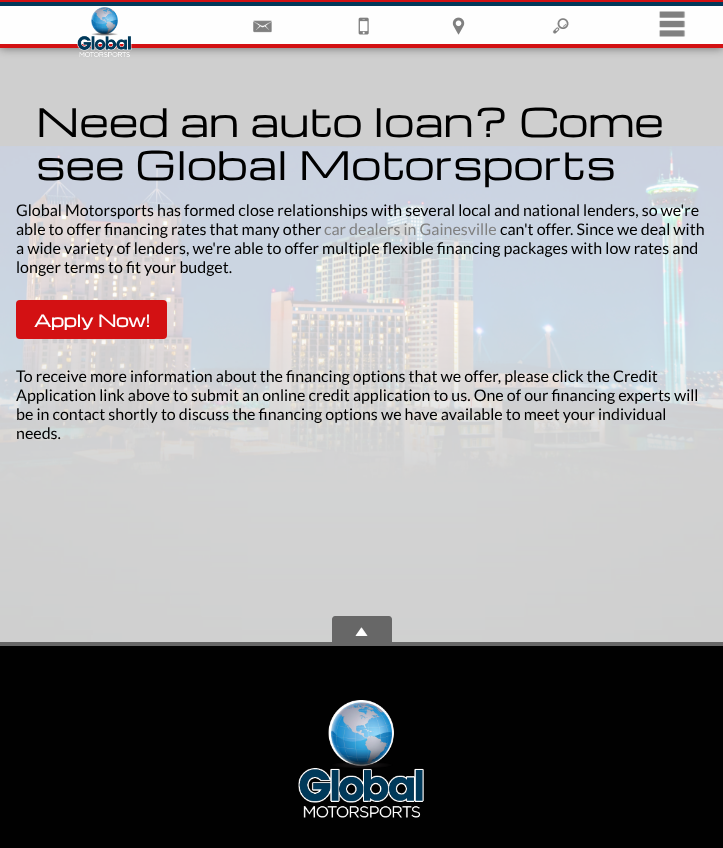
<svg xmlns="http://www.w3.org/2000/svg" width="723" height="848">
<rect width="100%" height="100%" fill="#141414"/>
<image x="0" y="146" width="723" height="496" href="media/7.png"/>
<rect y="48" width="723" height="594" fill="#fefefecc"/>
<rect width="723" height="48" fill="#00000080" filter="blur(5px)"/>
<rect width="723" height="2" fill="#d31113"/>
<rect y="44" width="723" height="4" fill="#d31113"/>
<rect y="6" width="723" height="38" fill="#fefefe"/>
<rect y="2" width="723" height="4" fill="#02395a"/>
<image x="77" y="7" width="55" height="50" href="media/1.png"/>
<image x="253" y="20" width="19" height="13" href="media/2.png"/>
<image x="358" y="17" width="11" height="18" href="media/3.png"/>
<image x="452" y="17" width="13" height="18" href="media/4.png"/>
<image x="552" y="18" width="17" height="16" href="media/5.png"/>
<image x="659" y="11" width="27" height="26" href="media/6.png"/>
<text x="36" y="137" style="font-family:Michroma;font-size:38.4px;fill:#000">Need an auto loan? Come</text>
<text x="36" y="180" style="font-family:Michroma;font-size:38.4px;fill:#000">see Global Motorsports</text>
<text x="16" y="216" style="font-family:Lato;font-size:16px;fill:#000">Global Motorsports has formed close relationships with several local and national lenders, so we're</text>
<text x="16" y="235" style="font-family:Lato;font-size:16px;fill:#000">able to offer financing rates that many other</text>
<text x="324" y="235" style="font-family:Lato;font-size:16px;fill:#818181">car dealers in Gainesville</text>
<text x="500" y="235" style="font-family:Lato;font-size:16px;fill:#000">can't offer. Since we deal with</text>
<text x="16" y="254" style="font-family:Lato;font-size:16px;fill:#000">a wide variety of lenders, we're able to offer multiple flexible financing packages with low rates and</text>
<text x="16" y="273" style="font-family:Lato;font-size:16px;fill:#000">longer terms to fit your budget.</text>
<rect x="16" y="300" width="151" height="39" rx="4" fill="#d31113"/>
<text x="34" y="327" style="font-family:Michroma;font-size:16px;font-weight:bold;fill:#fefefe">Apply Now!</text>
<text x="16" y="382" style="font-family:Lato;font-size:16px;fill:#000">To receive more information about the financing options that we offer, please click the Credit</text>
<text x="16" y="401" style="font-family:Lato;font-size:16px;fill:#000">Application link above to submit an online credit application to us. One of our financing experts will</text>
<text x="16" y="420" style="font-family:Lato;font-size:16px;fill:#000">be in contact shortly to discuss the financing options we have available to meet your individual</text>
<text x="16" y="439" style="font-family:Lato;font-size:16px;fill:#000">needs.</text>
<rect y="646" width="723" height="202" fill="#010101"/>
<rect y="642" width="723" height="4" fill="#676767"/>
<path d="M335 616h54c1.5 0 3 1.5 3 3v25h-60v-25c0-1.5 1.5-3 3-3z" fill="#676767"/>
<image x="355" y="627" width="13" height="9" href="media/8.png"/>
<image x="298" y="700" width="126" height="118" href="media/9.png"/>
</svg>
